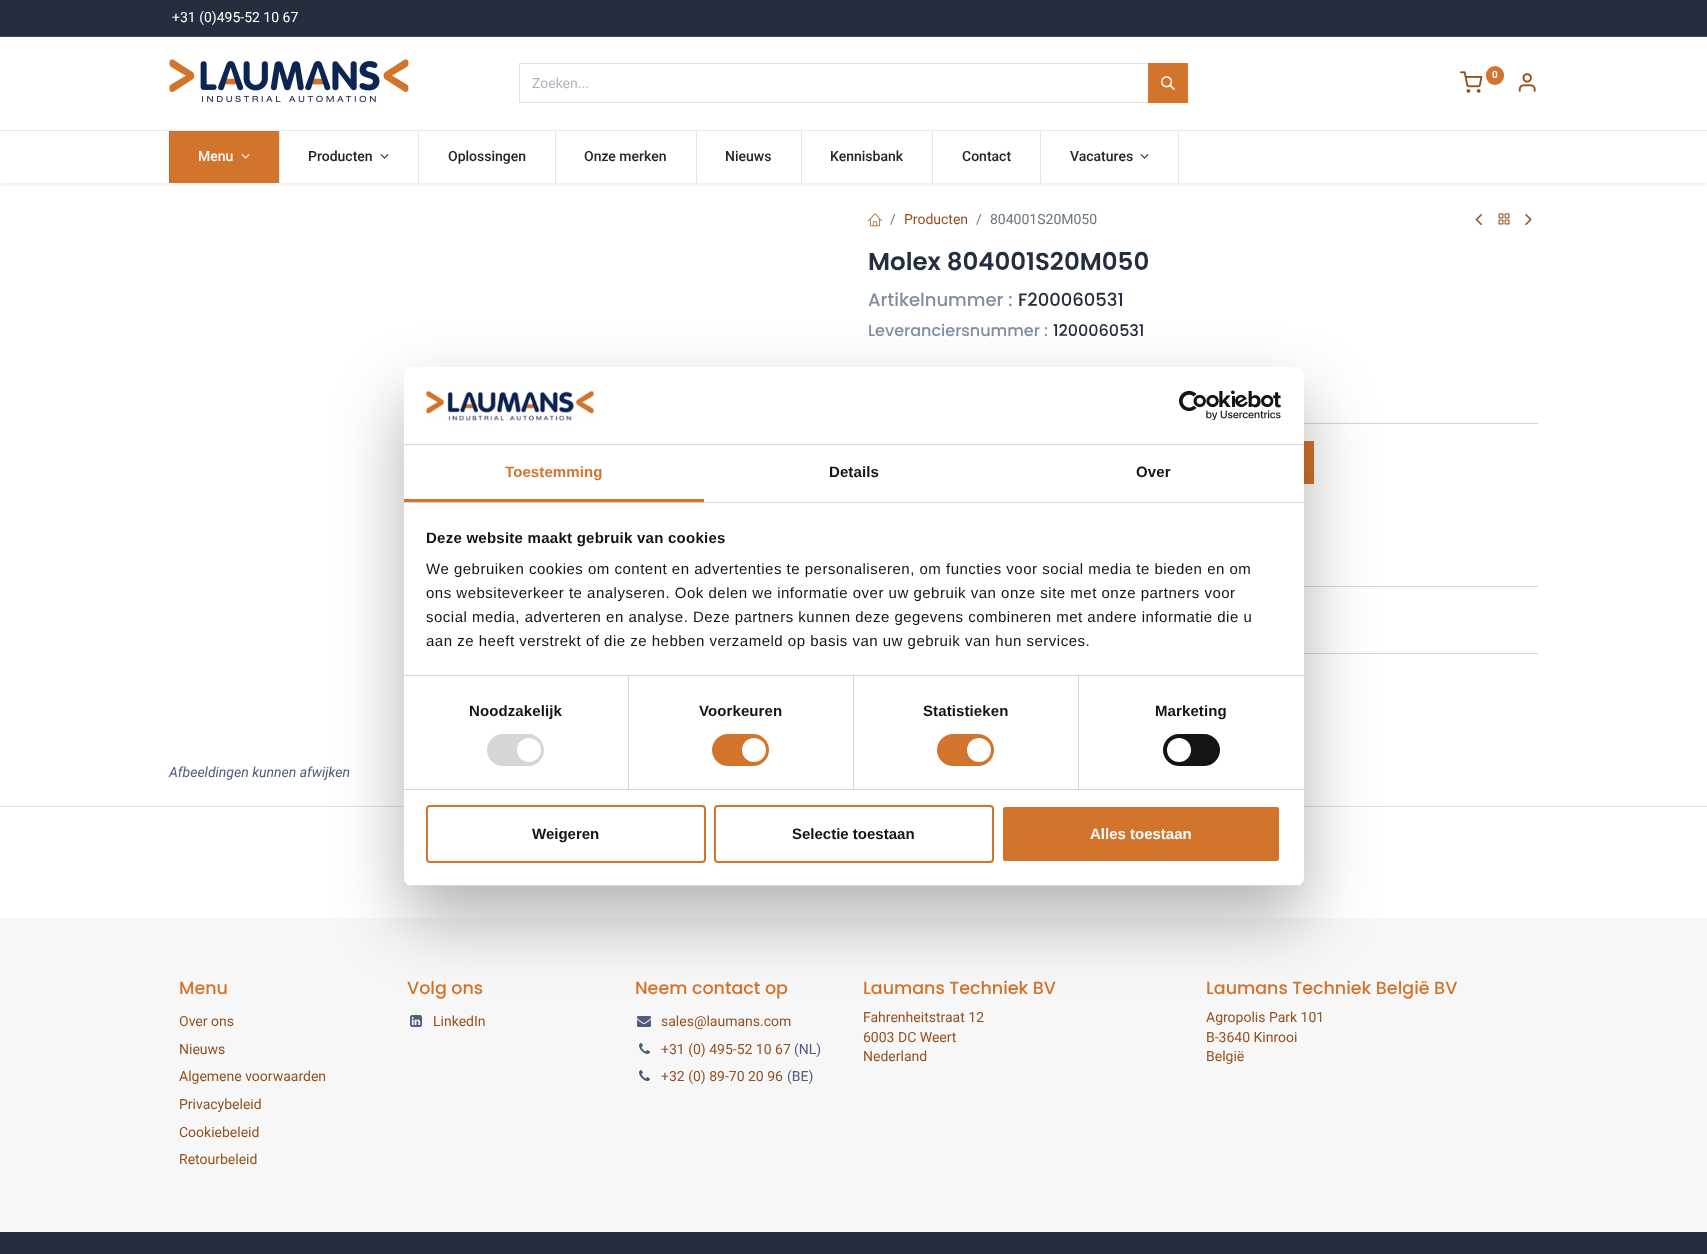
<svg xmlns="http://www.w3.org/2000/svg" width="1707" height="1254">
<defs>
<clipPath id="clip1"><rect x="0" y="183" width="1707" height="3"/></clipPath>
<clipPath id="clip2"><rect x="404" y="367" width="900" height="519" rx="8"/></clipPath>
</defs>
<rect width="100%" height="100%" fill="#fff"/>
<rect width="1707" height="36" fill="#232f3e"/>
<rect y="36" width="1707" height="1" fill="#3d4855"/>
<text x="172" y="22" style="font-family:Roboto;font-size:14px;fill:#fff">+31 (0)495-52 10 67</text>
<rect y="130" width="1707" height="1" fill="#eaebef"/>
<image x="169" y="59" width="240" height="43" href="media/1.png"/>
<image x="1460" y="71" width="23" height="22" href="media/2.png"/>
<rect x="1486" y="66" width="18" height="19" rx="9" fill="#d2742c"/>
<text x="1492" y="78" style="font-family:Roboto;font-size:10px;font-weight:bold;fill:#fff">0</text>
<image x="1518" y="73" width="18" height="19" href="media/3.png"/>
<rect x="519.5" y="63.5" width="629" height="39" fill="none" stroke="#dee2e6"/>
<text x="532" y="88" style="font-family:Roboto;font-size:14px;fill:#adb5bd">Zoeken...</text>
<rect x="1148" y="63" width="40" height="40" fill="#d2742c"/>
<image x="1161" y="76" width="14" height="14" href="media/4.png"/>
<g clip-path="url(#clip1)">
<rect y="133" width="1707" height="52" fill="#00000012" filter="blur(2px)"/>
</g>
<rect x="170" y="131" width="109" height="52" fill="#d2742c"/>
<rect x="169" y="131" width="1" height="52" fill="#bd6b2c"/>
<text x="198" y="161" style="font-family:Roboto;font-size:14px;font-weight:500;fill:#fff">Menu</text>
<image x="241" y="154" width="9" height="5" href="media/5.png"/>
<rect x="279" y="131" width="1" height="52" fill="#e4e5e5"/>
<text x="308" y="161" style="font-family:Roboto;font-size:14px;font-weight:500;fill:#212529">Producten</text>
<image x="380" y="154" width="9" height="5" href="media/6.png"/>
<rect x="418" y="131" width="1" height="52" fill="#e4e5e5"/>
<text x="448" y="161" style="font-family:Roboto;font-size:14px;font-weight:500;fill:#212529">Oplossingen</text>
<rect x="555" y="131" width="1" height="52" fill="#e4e5e5"/>
<text x="584" y="161" style="font-family:Roboto;font-size:14px;font-weight:500;fill:#212529">Onze merken</text>
<rect x="696" y="131" width="1" height="52" fill="#e4e5e5"/>
<text x="725" y="161" style="font-family:Roboto;font-size:14px;font-weight:500;fill:#212529">Nieuws</text>
<rect x="801" y="131" width="1" height="52" fill="#e4e5e5"/>
<text x="830" y="161" style="font-family:Roboto;font-size:14px;font-weight:500;fill:#212529">Kennisbank</text>
<rect x="932" y="131" width="1" height="52" fill="#e4e5e5"/>
<text x="962" y="161" style="font-family:Roboto;font-size:14px;font-weight:500;fill:#212529">Contact</text>
<rect x="1178" y="131" width="1" height="52" fill="#e4e5e5"/>
<rect x="1040" y="131" width="1" height="52" fill="#e4e5e5"/>
<text x="1070" y="161" style="font-family:Roboto;font-size:14px;font-weight:500;fill:#212529">Vacatures</text>
<image x="1140" y="154" width="9" height="5" href="media/6.png"/>
<image x="868" y="213" width="14" height="14" href="media/7.png"/>
<text x="890" y="224" style="font-family:Roboto;font-size:14px;fill:#6c757d">/</text>
<text x="904" y="224" style="font-family:Roboto;font-size:14px;fill:#93511f">Producten</text>
<text x="976" y="224" style="font-family:Roboto;font-size:14px;fill:#6c757d">/</text>
<text x="990" y="224" style="font-family:Roboto;font-size:14px;fill:#6c757d">804001S20M050</text>
<image x="1475" y="214" width="7" height="12" href="media/8.png"/>
<image x="1498" y="213" width="12" height="12" href="media/9.png"/>
<image x="1525" y="214" width="7" height="12" href="media/10.png"/>
<text x="868" y="270" style="font-family:Poppins;font-size:24.5px;font-weight:600;fill:#232f3e">Molex 804001S20M050</text>
<text x="868" y="306" style="font-family:Poppins;font-size:18px;font-weight:500;fill:#828ca3">Artikelnummer :</text>
<text x="1018" y="306" style="font-family:Poppins;font-size:18px;font-weight:500;fill:#232f3e">F200060531</text>
<text x="868" y="336" style="font-family:Poppins;font-size:16px;font-weight:500;fill:#828ca3">Leveranciersnummer :</text>
<text x="1053" y="336" style="font-family:Poppins;font-size:16px;font-weight:500;fill:#232f3e">1200060531</text>
<rect x="1304" y="423" width="234" height="1" fill="#d3d6de"/>
<rect x="1304" y="441" width="10" height="43" fill="#d2742c"/>
<rect x="1304" y="586" width="234" height="1" fill="#d3d6de"/>
<rect x="1304" y="653" width="234" height="1" fill="#d3d6de"/>
<text x="169" y="777" style="font-family:Roboto;font-size:14px;font-style:italic;fill:#4d5b7c">Afbeeldingen kunnen afwijken</text>
<rect y="806" width="1707" height="1" fill="#dee2e6"/>
<rect y="918" width="1707" height="314" fill="#f7f7f7"/>
<text x="179" y="994" style="font-family:Poppins;font-size:17.5px;font-weight:500;fill:#d2742c">Menu</text>
<text x="179" y="1026" style="font-family:Roboto;font-size:14px;fill:#93511f">Over ons</text>
<text x="179" y="1054" style="font-family:Roboto;font-size:14px;fill:#93511f">Nieuws</text>
<text x="179" y="1081" style="font-family:Roboto;font-size:14px;fill:#93511f">Algemene voorwaarden</text>
<text x="179" y="1109" style="font-family:Roboto;font-size:14px;fill:#93511f">Privacybeleid</text>
<text x="179" y="1137" style="font-family:Roboto;font-size:14px;fill:#93511f">Cookiebeleid</text>
<text x="179" y="1164" style="font-family:Roboto;font-size:14px;fill:#93511f">Retourbeleid</text>
<text x="407" y="994" style="font-family:Poppins;font-size:17.5px;font-weight:500;fill:#d2742c">Volg ons</text>
<image x="410" y="1015" width="12" height="12" href="media/11.png"/>
<text x="433" y="1026" style="font-family:Roboto;font-size:14px;fill:#93511f">LinkedIn</text>
<text x="635" y="994" style="font-family:Poppins;font-size:17.5px;font-weight:500;fill:#d2742c">Neem contact op</text>
<image x="637" y="1016" width="14" height="11" href="media/12.png"/>
<text x="661" y="1026" style="font-family:Roboto;font-size:14px;fill:#93511f">sales@laumans.com</text>
<image x="639" y="1043" width="11" height="11" href="media/13.png"/>
<text x="661" y="1054" style="font-family:Roboto;font-size:14px;fill:#93511f">+31 (0) 495-52 10 67</text>
<text x="794" y="1054" style="font-family:Roboto;font-size:14px;fill:#4d5b7c">(NL)</text>
<image x="639" y="1070" width="11" height="11" href="media/13.png"/>
<text x="661" y="1081" style="font-family:Roboto;font-size:14px;fill:#93511f">+32 (0) 89-70 20 96</text>
<text x="787" y="1081" style="font-family:Roboto;font-size:14px;fill:#4d5b7c">(BE)</text>
<text x="863" y="994" style="font-family:Poppins;font-size:17.5px;font-weight:500;fill:#d2742c">Laumans Techniek BV</text>
<text x="863" y="1022" style="font-family:Roboto;font-size:14px;fill:#93511f">Fahrenheitstraat 12</text>
<text x="863" y="1042" style="font-family:Roboto;font-size:14px;fill:#93511f">6003 DC Weert</text>
<text x="863" y="1061" style="font-family:Roboto;font-size:14px;fill:#93511f">Nederland</text>
<text x="1206" y="994" style="font-family:Poppins;font-size:17.5px;font-weight:500;fill:#d2742c">Laumans Techniek België BV</text>
<text x="1206" y="1022" style="font-family:Roboto;font-size:14px;fill:#93511f">Agropolis Park 101</text>
<text x="1206" y="1042" style="font-family:Roboto;font-size:14px;fill:#93511f">B-3640 Kinrooi</text>
<text x="1206" y="1061" style="font-family:Roboto;font-size:14px;fill:#93511f">België</text>
<rect y="1232" width="1707" height="22" fill="#232f3e"/>
<rect x="404" y="399" width="900" height="519" rx="8" fill="#0000004d" filter="blur(34px)"/>
<rect x="404" y="367" width="900" height="519" rx="8" fill="#fff"/>
<rect x="404" y="444" width="900" height="1" fill="#d6d6d6"/>
<image x="426" y="390" width="169" height="31" href="media/14.png"/>
<image x="1179" y="390" width="102" height="30" href="media/15.png"/>
<rect x="404" y="502" width="900" height="1" fill="#d6d6d6"/>
<rect x="404" y="499" width="300" height="3" fill="#d2742c"/>
<text x="505" y="477" style="font-family:Liberation Sans;font-size:15px;font-weight:bold;letter-spacing:0.1px;fill:#d2742c">Toestemming</text>
<text x="829" y="477" style="font-family:Liberation Sans;font-size:15px;font-weight:bold;letter-spacing:0.1px;fill:#141414">Details</text>
<text x="1136" y="477" style="font-family:Liberation Sans;font-size:15px;font-weight:bold;letter-spacing:0.1px;fill:#141414">Over</text>
<rect x="404" y="675" width="900" height="1" fill="#d6d6d6"/>
<text x="426" y="543" style="font-family:Liberation Sans;font-size:15px;font-weight:bold;letter-spacing:0.25px;fill:#141414">Deze website maakt gebruik van cookies</text>
<text x="426" y="574" style="font-family:Liberation Sans;font-size:15px;letter-spacing:0.5px;fill:#141414">We gebruiken cookies om content en advertenties te personaliseren, om functies voor social media te bieden en om</text>
<text x="426" y="598" style="font-family:Liberation Sans;font-size:15px;letter-spacing:0.5px;fill:#141414">ons websiteverkeer te analyseren. Ook delen we informatie over uw gebruik van onze site met onze partners voor</text>
<text x="426" y="622" style="font-family:Liberation Sans;font-size:15px;letter-spacing:0.5px;fill:#141414">social media, adverteren en analyse. Deze partners kunnen deze gegevens combineren met andere informatie die u</text>
<text x="426" y="646" style="font-family:Liberation Sans;font-size:15px;letter-spacing:0.5px;fill:#141414">aan ze heeft verstrekt of die ze hebben verzameld op basis van uw gebruik van hun services.</text>
<rect x="404" y="789" width="900" height="1" fill="#d6d6d6"/>
<rect x="628" y="676" width="1" height="113" fill="#d6d6d6"/>
<text x="469" y="716" style="font-family:Liberation Sans;font-size:15px;font-weight:bold;letter-spacing:0.1px;fill:#141414">Noodzakelijk</text>
<rect x="487" y="734" width="57" height="32" rx="16" fill="#d6d6d6"/>
<circle cx="529" cy="750" r="12" fill="#fff"/>
<rect x="853" y="676" width="1" height="113" fill="#d6d6d6"/>
<text x="699" y="716" style="font-family:Liberation Sans;font-size:15px;font-weight:bold;letter-spacing:0.1px;fill:#141414">Voorkeuren</text>
<rect x="712" y="734" width="57" height="32" rx="16" fill="#d2742c"/>
<circle cx="754" cy="750" r="12" fill="#fff"/>
<rect x="1078" y="676" width="1" height="113" fill="#d6d6d6"/>
<text x="923" y="716" style="font-family:Liberation Sans;font-size:15px;font-weight:bold;letter-spacing:0.1px;fill:#141414">Statistieken</text>
<rect x="937" y="734" width="57" height="32" rx="16" fill="#d2742c"/>
<circle cx="979" cy="750" r="12" fill="#fff"/>
<text x="1155" y="716" style="font-family:Liberation Sans;font-size:15px;font-weight:bold;letter-spacing:0.1px;fill:#141414">Marketing</text>
<rect x="1163" y="734" width="57" height="32" rx="16" fill="#141414"/>
<circle cx="1179" cy="750" r="12" fill="#fff"/>
<g clip-path="url(#clip2)">
<rect x="404" y="885" width="900" height="1" fill="#d6d6d6"/>
</g>
<rect x="427" y="806" width="278" height="56" rx="3" fill="none" stroke="#d2742c" stroke-width="2"/>
<text x="532" y="839" style="font-family:Liberation Sans;font-size:15px;font-weight:bold;fill:#141414">Weigeren</text>
<rect x="715" y="806" width="278" height="56" rx="3" fill="none" stroke="#d2742c" stroke-width="2"/>
<text x="792" y="839" style="font-family:Liberation Sans;font-size:15px;font-weight:bold;fill:#141414">Selectie toestaan</text>
<rect x="1002" y="806" width="278" height="56" rx="3" fill="#d2742c" stroke="#fff" stroke-width="2"/>
<text x="1090" y="839" style="font-family:Liberation Sans;font-size:15px;font-weight:bold;fill:#fff">Alles toestaan</text>
</svg>
